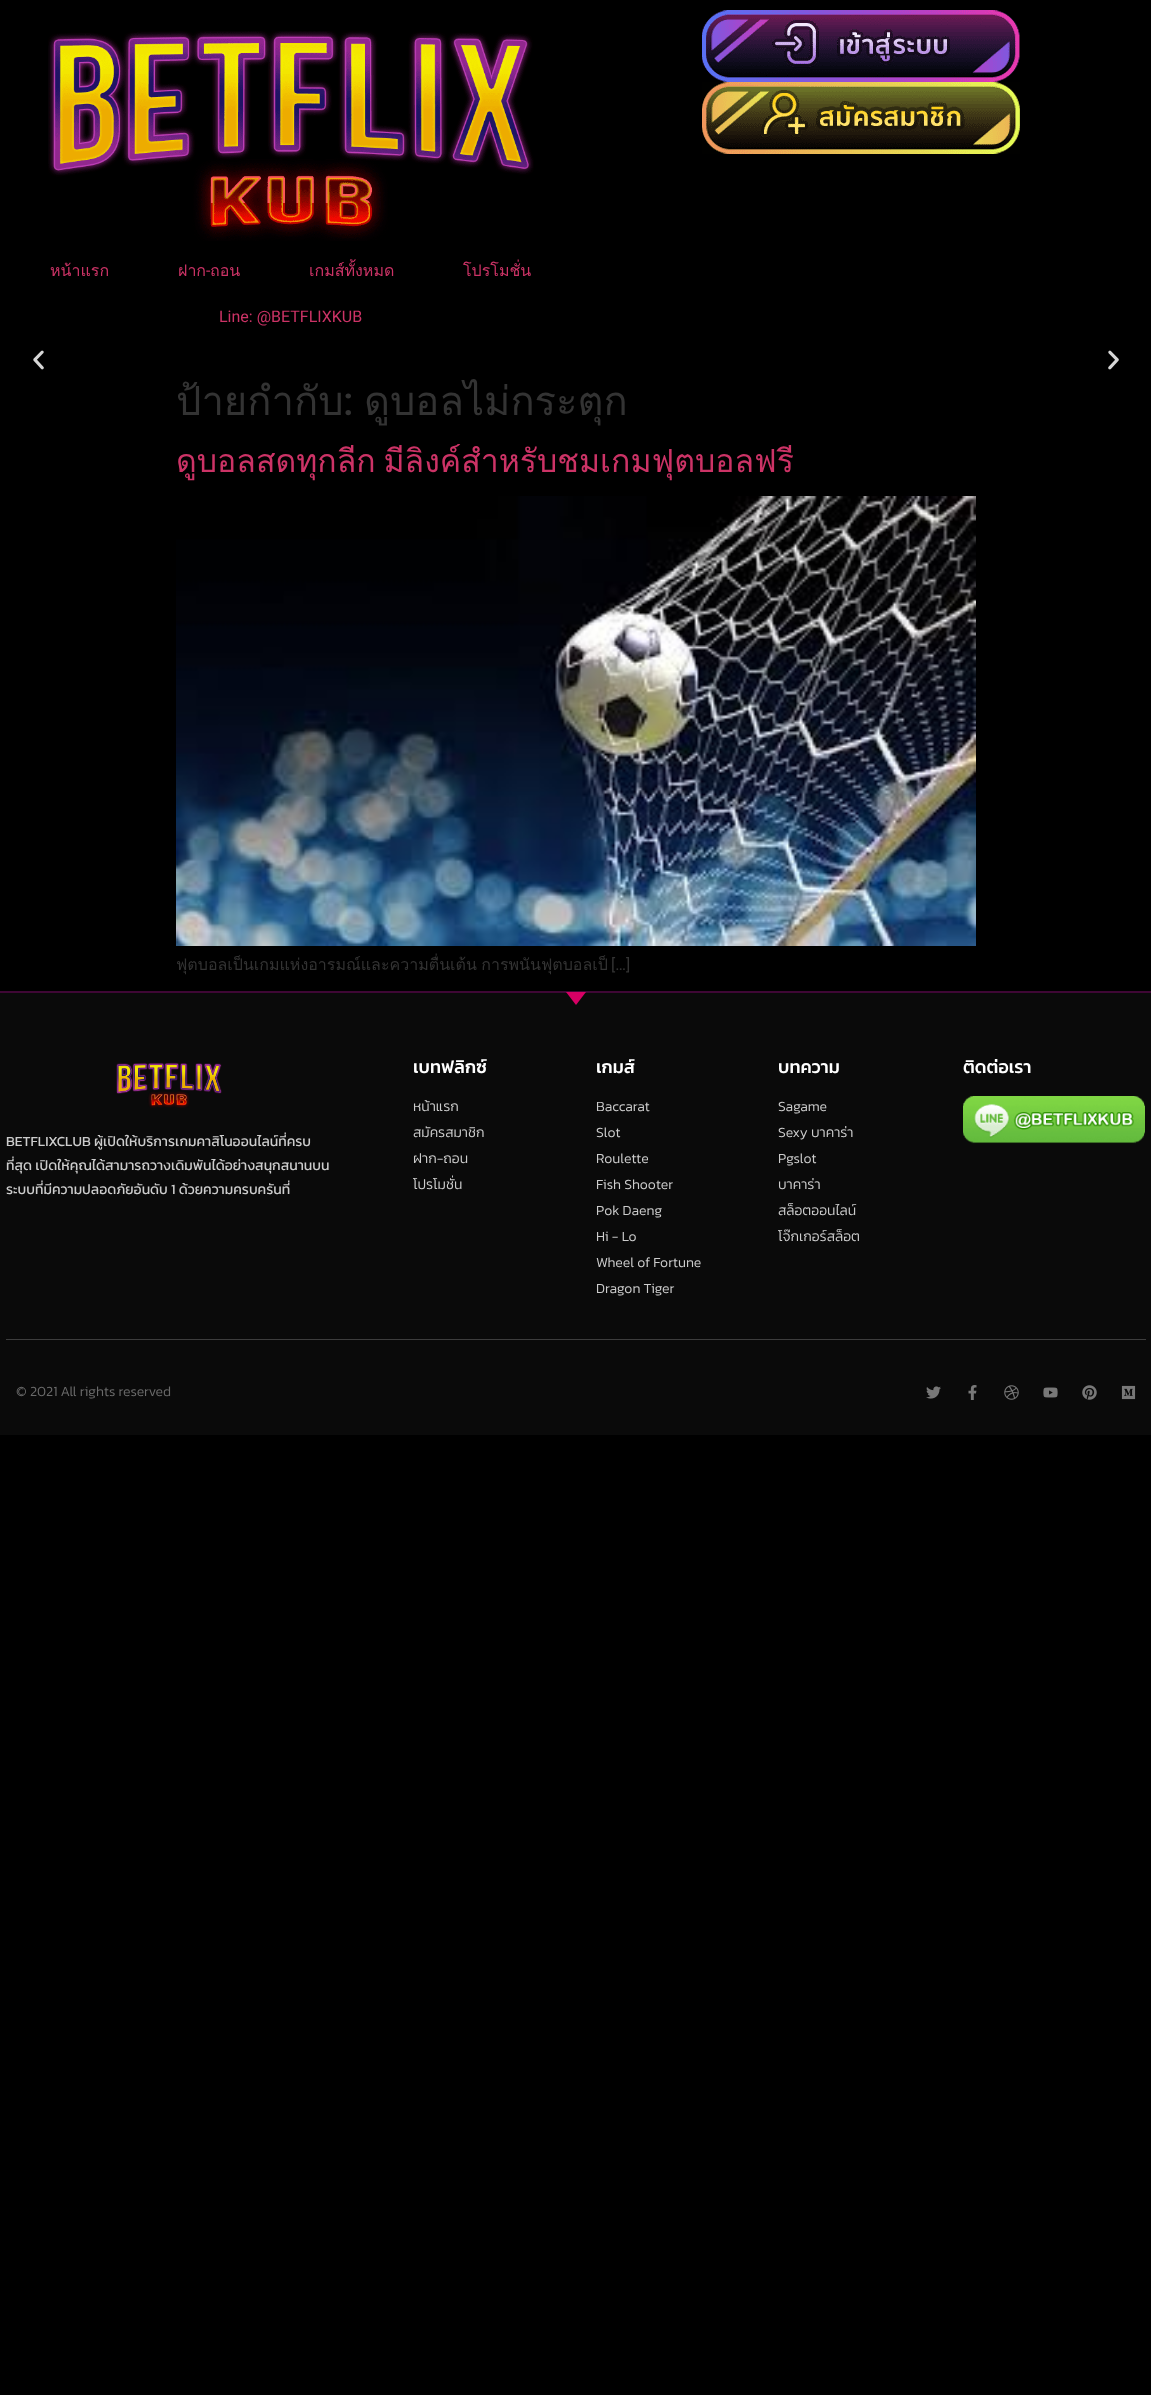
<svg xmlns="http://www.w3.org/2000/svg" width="1151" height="2395">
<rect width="100%" height="100%" fill="#000"/>
<image x="702" y="10" width="318" height="72" href="media/1.png"/>
<image x="702" y="82" width="318" height="72" href="media/2.png"/>
<image x="48" y="31" width="486" height="210" href="media/3.png"/>
<text x="50" y="276" style="font-family:Loma;font-size:16px;fill:#c36">หน้าแรก</text>
<text x="178" y="276" style="font-family:Loma;font-size:16px;fill:#c36">ฝาก</text>
<text x="206" y="276" style="font-family:Roboto;font-size:16px;fill:#c36">-</text>
<text x="210" y="276" style="font-family:Loma;font-size:16px;fill:#c36">ถอน</text>
<text x="309" y="276" style="font-family:Loma;font-size:16px;fill:#c36">เกมส์ทั้งหมด</text>
<text x="463" y="276" style="font-family:Loma;font-size:16px;fill:#c36">โปรโมชั่น</text>
<text x="219" y="322" style="font-family:Roboto;font-size:16px;fill:#c36">Line: @BETFLIXKUB</text>
<image x="33" y="350" width="11" height="20" href="media/4.png"/>
<image x="1108" y="350" width="11" height="20" href="media/5.png"/>
<text x="176" y="415" style="font-family:Loma;font-size:40px;fill:#333">ป้ายกำกับ</text>
<text x="343" y="415" style="font-family:Roboto;font-size:40px;font-weight:500;fill:#333">:</text>
<text x="364" y="415" style="font-family:Loma;font-size:40px;fill:#333">ดูบอลไม่กระตุก</text>
<text x="176" y="472" word-spacing="-3" style="font-family:Loma;font-size:32px;fill:#c36">ดูบอลสดทุกลีก มีลิงค์สำหรับชมเกมฟุตบอลฟรี</text>
<image x="176" y="496" width="800" height="450" href="media/6.png"/>
<text x="176" y="970" word-spacing="-1" style="font-family:Loma;font-size:16px;fill:#333">ฟุตบอลเป็นเกมแห่งอารมณ์และความตื่นเต้น การพนันฟุตบอลเป็</text>
<text x="611" y="970" style="font-family:Roboto;font-size:16px;fill:#333">[…]</text>
<rect y="993" width="1151" height="442" fill="#0a0a0a"/>
<rect y="991" width="1151" height="2" fill="#3f0735"/>
<path d="M576 1005l-10-13h20z" fill="#d70065"/>
<image x="116" y="1062" width="106" height="46" href="media/7.png"/>
<text x="6" y="1146" style="font-family:Kanit;font-size:14px;fill:#ccc">BETFLIXCLUB ผู้เปิดให้บริการเกมคาสิโนออนไลน์ที่ครบ</text>
<text x="6" y="1170" style="font-family:Kanit;font-size:14px;fill:#ccc">ที่สุด เปิดให้คุณได้สามารถวางเดิมพันได้อย่างสนุกสนานบน</text>
<text x="6" y="1194" style="font-family:Kanit;font-size:14px;fill:#ccc">ระบบที่มีความปลอดภัยอันดับ 1 ด้วยความครบครันที่</text>
<text x="413" y="1073" style="font-family:Kanit;font-size:18px;font-weight:500;fill:#fff">เบทฟลิกซ์</text>
<text x="413" y="1111" style="font-family:Kanit;font-size:14px;font-weight:300;fill:#ccc">หน้าแรก</text>
<text x="413" y="1137" style="font-family:Kanit;font-size:14px;font-weight:300;fill:#ccc">สมัครสมาชิก</text>
<text x="413" y="1163" style="font-family:Kanit;font-size:14px;font-weight:300;fill:#ccc">ฝาก-ถอน</text>
<text x="413" y="1189" style="font-family:Kanit;font-size:14px;font-weight:300;fill:#ccc">โปรโมชั่น</text>
<text x="596" y="1073" style="font-family:Kanit;font-size:18px;font-weight:500;fill:#fff">เกมส์</text>
<text x="596" y="1111" style="font-family:Kanit;font-size:14px;font-weight:300;fill:#ccc">Baccarat</text>
<text x="596" y="1137" style="font-family:Kanit;font-size:14px;font-weight:300;fill:#ccc">Slot</text>
<text x="596" y="1163" style="font-family:Kanit;font-size:14px;font-weight:300;fill:#ccc">Roulette</text>
<text x="596" y="1189" style="font-family:Kanit;font-size:14px;font-weight:300;fill:#ccc">Fish Shooter</text>
<text x="596" y="1215" style="font-family:Kanit;font-size:14px;font-weight:300;fill:#ccc">Pok Daeng</text>
<text x="596" y="1241" style="font-family:Kanit;font-size:14px;font-weight:300;fill:#ccc">Hi - Lo</text>
<text x="596" y="1267" style="font-family:Kanit;font-size:14px;font-weight:300;fill:#ccc">Wheel of Fortune</text>
<text x="596" y="1293" style="font-family:Kanit;font-size:14px;font-weight:300;fill:#ccc">Dragon Tiger</text>
<text x="778" y="1073" style="font-family:Kanit;font-size:18px;font-weight:500;fill:#fff">บทความ</text>
<text x="778" y="1111" style="font-family:Kanit;font-size:14px;font-weight:300;fill:#ccc">Sagame</text>
<text x="778" y="1137" style="font-family:Kanit;font-size:14px;font-weight:300;fill:#ccc">Sexy บาคาร่า</text>
<text x="778" y="1163" style="font-family:Kanit;font-size:14px;font-weight:300;fill:#ccc">Pgslot</text>
<text x="778" y="1189" style="font-family:Kanit;font-size:14px;font-weight:300;fill:#ccc">บาคาร่า</text>
<text x="778" y="1215" style="font-family:Kanit;font-size:14px;font-weight:300;fill:#ccc">สล็อตออนไลน์</text>
<text x="778" y="1241" style="font-family:Kanit;font-size:14px;font-weight:300;fill:#ccc">โจ๊กเกอร์สล็อต</text>
<text x="963" y="1073" style="font-family:Kanit;font-size:18px;font-weight:500;fill:#fff">ติดต่อเรา</text>
<image x="963" y="1096" width="182" height="48" href="media/8.png"/>
<rect x="6" y="1339" width="1140" height="1" fill="#3d3d3d"/>
<text x="16" y="1396" style="font-family:Kanit;font-size:14px;font-weight:300;fill:#6a6a6a">© 2021 All rights reserved</text>
<image x="926" y="1386" width="15" height="13" href="media/9.png"/>
<image x="968" y="1385" width="9" height="15" href="media/10.png"/>
<image x="1004" y="1385" width="15" height="15" href="media/11.png"/>
<image x="1043" y="1387" width="15" height="11" href="media/12.png"/>
<image x="1082" y="1385" width="15" height="15" href="media/13.png"/>
<image x="1121" y="1385" width="15" height="15" href="media/14.png"/>
</svg>
